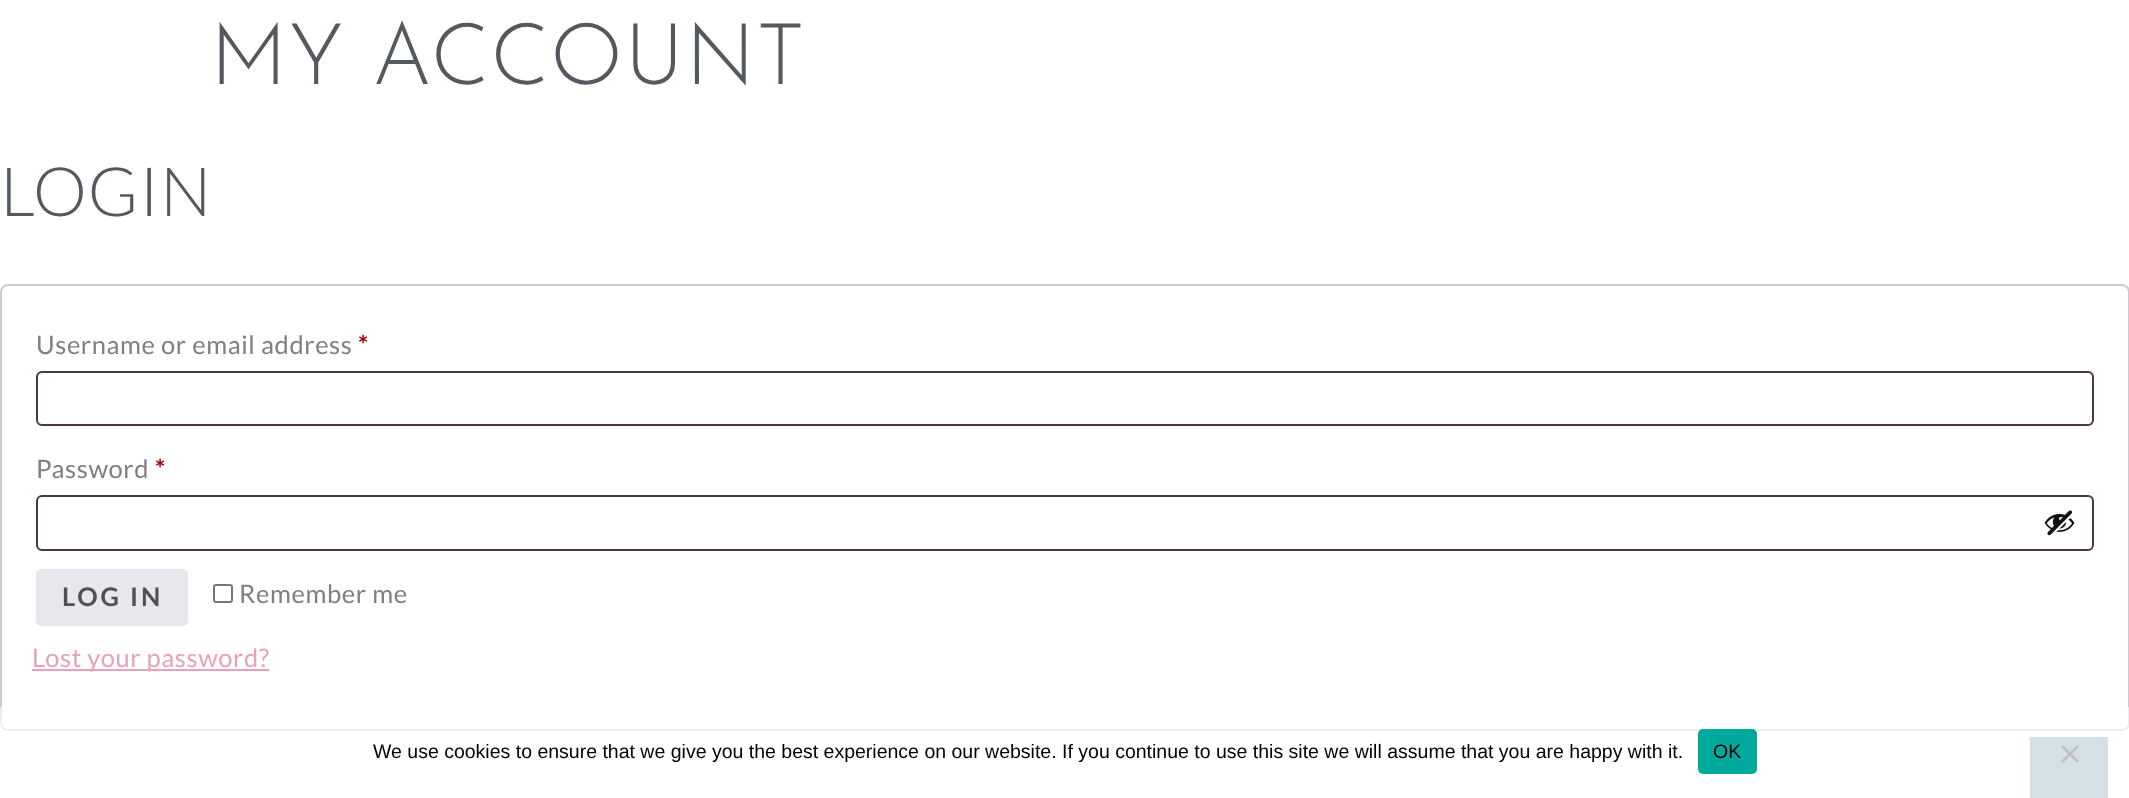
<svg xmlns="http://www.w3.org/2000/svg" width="2129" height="798">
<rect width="100%" height="100%" fill="#fff"/>
<text x="210" y="84" style="font-family:Josefin Sans;font-size:85.25px;font-weight:300;letter-spacing:0.75px;fill:#54595f">MY ACCOUNT</text>
<text x="0" y="216" style="font-family:Lato;font-size:68px;font-weight:300;letter-spacing:0.6px;fill:#54595f">LOGIN</text>
<rect x="1" y="285" width="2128" height="445" rx="7" fill="none" stroke="#cfc8d8" stroke-width="2"/>
<text x="36" y="354" style="font-family:Lato;font-size:25.5px;letter-spacing:0.6px;fill:#7f7f7f">Username or email address</text>
<text x="358" y="354" style="font-family:Lato;font-size:25.5px;font-weight:bold;letter-spacing:0.6px;fill:#a00">*</text>
<rect x="37" y="372" width="2056" height="53" rx="5" fill="none" stroke="#4d3939" stroke-width="2"/>
<text x="36" y="478" style="font-family:Lato;font-size:25.5px;letter-spacing:0.6px;fill:#7f7f7f">Password</text>
<text x="155" y="478" style="font-family:Lato;font-size:25.5px;font-weight:bold;letter-spacing:0.6px;fill:#a00">*</text>
<rect x="37" y="496" width="2056" height="54" rx="5" fill="none" stroke="#4d3939" stroke-width="2"/>
<image x="2044" y="510" width="31" height="26" href="media/1.png"/>
<rect x="36" y="569" width="152" height="57" rx="5" fill="#e9e6ed"/>
<text x="62" y="606" style="font-family:Lato;font-size:25.5px;font-weight:bold;letter-spacing:3px;fill:#515151">LOG IN</text>
<rect x="214" y="585" width="18" height="17" rx="2" fill="none" stroke="#767676" stroke-width="2"/>
<text x="239" y="603" style="font-family:Lato;font-size:25.5px;letter-spacing:0.6px;fill:#7f7f7f">Remember me</text>
<rect x="32" y="669" width="237" height="2" fill="#e7a2b4"/>
<text x="32" y="667" style="font-family:Lato;font-size:25.5px;letter-spacing:0.6px;fill:#e7a2b4">Lost your password?</text>
<rect y="707" width="2129" height="24" fill="#ffffffa6"/>
<text x="373" y="758" style="font-family:Liberation Sans;font-size:19.5px;fill:#000">We use cookies to ensure that we give you the best experience on our website. If you continue to use this site we will assume that you are happy with it.</text>
<rect x="1698" y="729" width="59" height="45" rx="5" fill="#00a99d"/>
<text x="1713" y="758" style="font-family:Liberation Sans;font-size:19.5px;fill:#000">OK</text>
<rect x="2030" y="737" width="78" height="61" fill="#d3e1e7"/>
<path d="M2077 745l2 2l-16 16l-2-2z" fill="#c0c0c0"/>
<path d="M2061 747l2-2l16 16l-2 2z" fill="#c0c0c0"/>
</svg>
